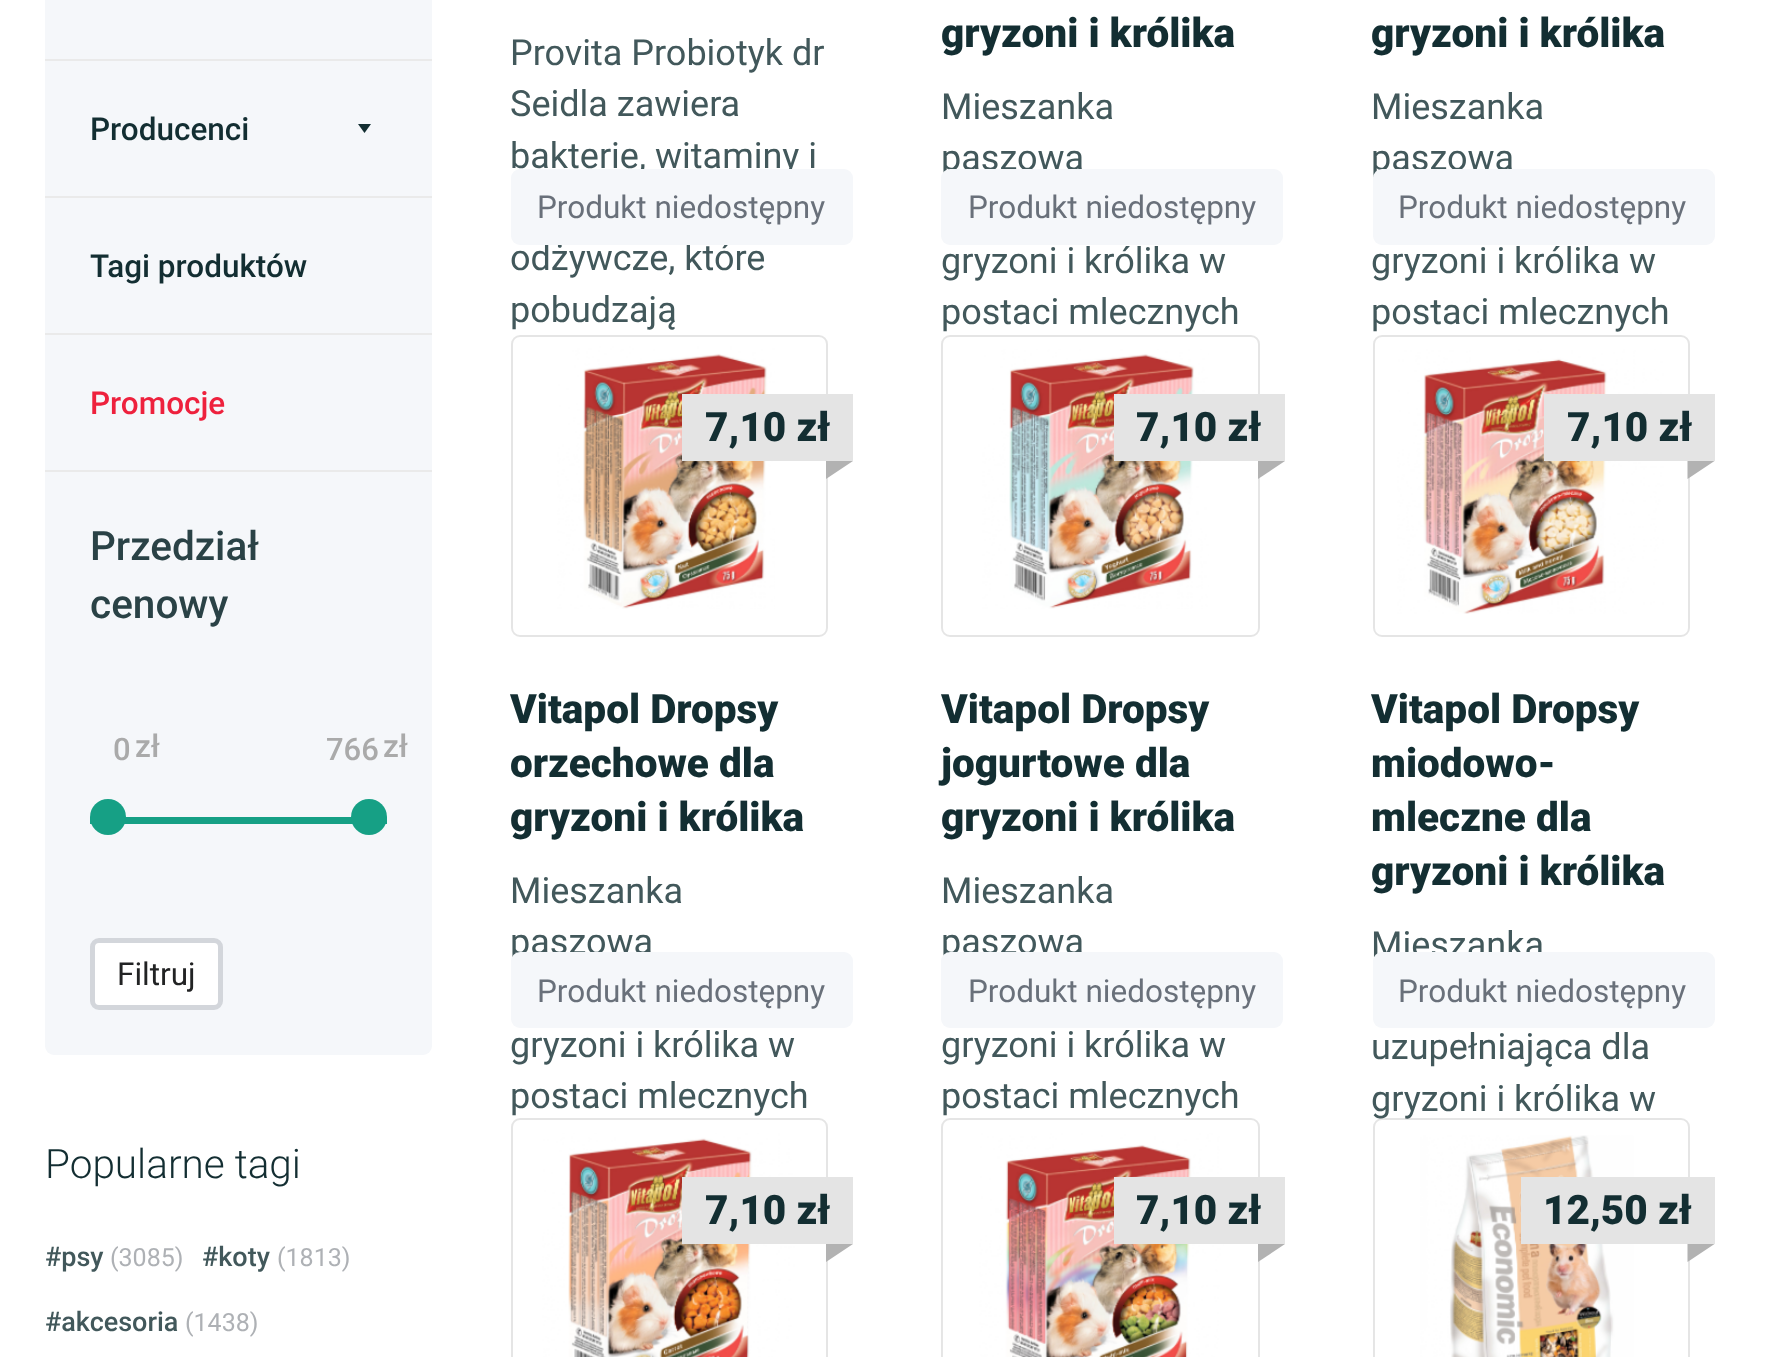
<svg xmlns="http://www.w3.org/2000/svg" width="1768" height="1357">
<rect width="100%" height="100%" fill="#fff"/>
<rect x="45" y="-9" width="387" height="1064" rx="9" fill="#f5f7fa"/>
<rect x="45" y="59" width="387" height="2" fill="#eaeaea"/>
<rect x="45" y="196" width="387" height="2" fill="#eaeaea"/>
<text x="90" y="140" style="font-family:Roboto;font-size:31.5px;font-weight:500;fill:#132e32">Producenci</text>
<path d="M358 124h13l-6.5 9z" fill="#132e32"/>
<rect x="45" y="333" width="387" height="2" fill="#eaeaea"/>
<text x="90" y="277" style="font-family:Roboto;font-size:31.5px;font-weight:500;fill:#132e32">Tagi produktów</text>
<rect x="45" y="470" width="387" height="2" fill="#eaeaea"/>
<text x="90" y="414" style="font-family:Roboto;font-size:31.5px;font-weight:500;fill:#ee213d">Promocje</text>
<text x="90" y="560" style="font-family:Roboto;font-size:40.5px;font-weight:500;fill:#2a4246">Przedział</text>
<text x="90" y="618" style="font-family:Roboto;font-size:40.5px;font-weight:500;fill:#2a4246">cenowy</text>
<text x="113" y="760" style="font-family:Roboto;font-size:31px;font-weight:500;fill:#aaa">0</text>
<text x="135" y="757" style="font-family:Roboto;font-size:31.5px;font-weight:500;fill:#aaa">zł</text>
<text x="326" y="760" style="font-family:Roboto;font-size:31px;font-weight:500;fill:#aaa">766</text>
<text x="383" y="757" style="font-family:Roboto;font-size:31.5px;font-weight:500;fill:#aaa">zł</text>
<rect x="90" y="817" width="297" height="7" fill="#16a085"/>
<circle cx="108" cy="817" r="18" fill="#16a085"/>
<circle cx="369" cy="817" r="18" fill="#16a085"/>
<rect x="92.5" y="940.5" width="128" height="67" rx="6.5" fill="#fff" stroke="#d3d6db" stroke-width="5"/>
<text x="117" y="985" style="font-family:Roboto;font-size:31.5px;fill:#222324">Filtruj</text>
<text x="45" y="1178" style="font-family:Roboto;font-size:40.5px;font-weight:300;fill:#132e32">Popularne tagi</text>
<text x="45" y="1266" style="font-family:Roboto;font-size:27px;font-weight:500;fill:#42585b">#psy</text>
<text x="110" y="1266" style="font-family:Roboto;font-size:25px;fill:#aeb1b5">(3085)</text>
<text x="202" y="1266" style="font-family:Roboto;font-size:27px;font-weight:500;fill:#42585b">#koty</text>
<text x="277" y="1266" style="font-family:Roboto;font-size:25px;fill:#aeb1b5">(1813)</text>
<text x="45" y="1331" style="font-family:Roboto;font-size:27px;font-weight:500;fill:#42585b">#akcesoria</text>
<text x="185" y="1331" style="font-family:Roboto;font-size:25px;fill:#aeb1b5">(1438)</text>
<text x="510" y="65" style="font-family:Roboto;font-size:36px;fill:#42585b">Provita Probiotyk dr</text>
<text x="510" y="116" style="font-family:Roboto;font-size:36px;fill:#42585b">Seidla zawiera</text>
<text x="510" y="168" style="font-family:Roboto;font-size:36px;fill:#42585b">bakterie, witaminy i</text>
<text x="510" y="270" style="font-family:Roboto;font-size:36px;fill:#42585b">odżywcze, które</text>
<text x="510" y="322" style="font-family:Roboto;font-size:36px;fill:#42585b">pobudzają</text>
<rect x="511" y="169" width="342" height="76" rx="9" fill="#f5f7fa"/>
<text x="537" y="218" style="font-family:Roboto;font-size:31.5px;fill:#69707a">Produkt niedostępny</text>
<text x="941" y="47" style="font-family:Roboto;font-size:40.5px;font-weight:900;fill:#132e32">gryzoni i królika</text>
<text x="941" y="119" style="font-family:Roboto;font-size:36px;fill:#42585b">Mieszanka</text>
<text x="941" y="170" style="font-family:Roboto;font-size:36px;fill:#42585b">paszowa</text>
<text x="941" y="273" style="font-family:Roboto;font-size:36px;fill:#42585b">gryzoni i królika w</text>
<text x="941" y="324" style="font-family:Roboto;font-size:36px;fill:#42585b">postaci mlecznych</text>
<rect x="941" y="169" width="342" height="76" rx="9" fill="#f5f7fa"/>
<text x="968" y="218" style="font-family:Roboto;font-size:31.5px;fill:#69707a">Produkt niedostępny</text>
<text x="1371" y="47" style="font-family:Roboto;font-size:40.5px;font-weight:900;fill:#132e32">gryzoni i królika</text>
<text x="1371" y="119" style="font-family:Roboto;font-size:36px;fill:#42585b">Mieszanka</text>
<text x="1371" y="170" style="font-family:Roboto;font-size:36px;fill:#42585b">paszowa</text>
<text x="1371" y="273" style="font-family:Roboto;font-size:36px;fill:#42585b">gryzoni i królika w</text>
<text x="1371" y="324" style="font-family:Roboto;font-size:36px;fill:#42585b">postaci mlecznych</text>
<rect x="1373" y="169" width="342" height="76" rx="9" fill="#f5f7fa"/>
<text x="1398" y="218" style="font-family:Roboto;font-size:31.5px;fill:#69707a">Produkt niedostępny</text>
<rect x="512" y="336" width="315" height="300" rx="8" fill="none" stroke="#0000001a" stroke-width="2"/>
<image x="513" y="346" width="262" height="263" href="media/1.png"/>
<rect x="682" y="394" width="171" height="67" fill="#e4e4e4"/>
<text x="705" y="441" style="font-family:Roboto;font-size:40.5px;font-weight:900;fill:#132e32">7,10 zł</text>
<path d="M826 461h27l-27 18z" fill="#b2b2b2"/>
<text x="510" y="723" style="font-family:Roboto;font-size:40.5px;font-weight:900;fill:#132e32">Vitapol Dropsy</text>
<text x="510" y="777" style="font-family:Roboto;font-size:40.5px;font-weight:900;fill:#132e32">orzechowe dla</text>
<text x="510" y="831" style="font-family:Roboto;font-size:40.5px;font-weight:900;fill:#132e32">gryzoni i królika</text>
<text x="510" y="903" style="font-family:Roboto;font-size:36px;fill:#42585b">Mieszanka</text>
<text x="510" y="954" style="font-family:Roboto;font-size:36px;fill:#42585b">paszowa</text>
<text x="510" y="1057" style="font-family:Roboto;font-size:36px;fill:#42585b">gryzoni i królika w</text>
<text x="510" y="1108" style="font-family:Roboto;font-size:36px;fill:#42585b">postaci mlecznych</text>
<rect x="511" y="952" width="342" height="76" rx="9" fill="#f5f7fa"/>
<text x="537" y="1002" style="font-family:Roboto;font-size:31.5px;fill:#69707a">Produkt niedostępny</text>
<rect x="942" y="336" width="317" height="300" rx="8" fill="none" stroke="#0000001a" stroke-width="2"/>
<image x="942" y="349" width="267" height="260" href="media/2.png"/>
<rect x="1114" y="394" width="171" height="67" fill="#e4e4e4"/>
<text x="1136" y="441" style="font-family:Roboto;font-size:40.5px;font-weight:900;fill:#132e32">7,10 zł</text>
<path d="M1258 461h27l-27 18z" fill="#b2b2b2"/>
<text x="941" y="723" style="font-family:Roboto;font-size:40.5px;font-weight:900;fill:#132e32">Vitapol Dropsy</text>
<text x="941" y="777" style="font-family:Roboto;font-size:40.5px;font-weight:900;fill:#132e32">jogurtowe dla</text>
<text x="941" y="831" style="font-family:Roboto;font-size:40.5px;font-weight:900;fill:#132e32">gryzoni i królika</text>
<text x="941" y="903" style="font-family:Roboto;font-size:36px;fill:#42585b">Mieszanka</text>
<text x="941" y="954" style="font-family:Roboto;font-size:36px;fill:#42585b">paszowa</text>
<text x="941" y="1057" style="font-family:Roboto;font-size:36px;fill:#42585b">gryzoni i królika w</text>
<text x="941" y="1108" style="font-family:Roboto;font-size:36px;fill:#42585b">postaci mlecznych</text>
<rect x="941" y="952" width="342" height="76" rx="9" fill="#f5f7fa"/>
<text x="968" y="1002" style="font-family:Roboto;font-size:31.5px;fill:#69707a">Produkt niedostępny</text>
<rect x="1374" y="336" width="315" height="300" rx="8" fill="none" stroke="#0000001a" stroke-width="2"/>
<image x="1374" y="349" width="300" height="265" href="media/3.png"/>
<rect x="1544" y="394" width="171" height="67" fill="#e4e4e4"/>
<text x="1567" y="441" style="font-family:Roboto;font-size:40.5px;font-weight:900;fill:#132e32">7,10 zł</text>
<path d="M1687.5 461h27l-27 18z" fill="#b2b2b2"/>
<text x="1371" y="723" style="font-family:Roboto;font-size:40.5px;font-weight:900;fill:#132e32">Vitapol Dropsy</text>
<text x="1371" y="777" style="font-family:Roboto;font-size:40.5px;font-weight:900;fill:#132e32">miodowo-</text>
<text x="1371" y="831" style="font-family:Roboto;font-size:40.5px;font-weight:900;fill:#132e32">mleczne dla</text>
<text x="1371" y="885" style="font-family:Roboto;font-size:40.5px;font-weight:900;fill:#132e32">gryzoni i królika</text>
<text x="1371" y="957" style="font-family:Roboto;font-size:36px;fill:#42585b">Mieszanka</text>
<text x="1371" y="1059" style="font-family:Roboto;font-size:36px;fill:#42585b">uzupełniająca dla</text>
<text x="1371" y="1111" style="font-family:Roboto;font-size:36px;fill:#42585b">gryzoni i królika w</text>
<rect x="1373" y="952" width="342" height="76" rx="9" fill="#f5f7fa"/>
<text x="1398" y="1002" style="font-family:Roboto;font-size:31.5px;fill:#69707a">Produkt niedostępny</text>
<rect x="512" y="1119" width="315" height="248" rx="8" fill="none" stroke="#0000001a" stroke-width="2"/>
<image x="513" y="1133" width="282" height="224" href="media/4.png"/>
<rect x="682" y="1177" width="171" height="67" fill="#e4e4e4"/>
<text x="705" y="1224" style="font-family:Roboto;font-size:40.5px;font-weight:900;fill:#132e32">7,10 zł</text>
<path d="M826 1244h27l-27 18z" fill="#b2b2b2"/>
<rect x="942" y="1119" width="317" height="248" rx="8" fill="none" stroke="#0000001a" stroke-width="2"/>
<image x="942" y="1133" width="282" height="224" href="media/5.png"/>
<rect x="1114" y="1177" width="171" height="67" fill="#e4e4e4"/>
<text x="1136" y="1224" style="font-family:Roboto;font-size:40.5px;font-weight:900;fill:#132e32">7,10 zł</text>
<path d="M1258 1244h27l-27 18z" fill="#b2b2b2"/>
<rect x="1374" y="1119" width="315" height="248" rx="8" fill="none" stroke="#0000001a" stroke-width="2"/>
<image x="1374" y="1135" width="294" height="222" href="media/6.png"/>
<rect x="1521" y="1177" width="194" height="67" fill="#e4e4e4"/>
<text x="1543" y="1224" style="font-family:Roboto;font-size:40.5px;font-weight:900;fill:#132e32">12,50 zł</text>
<path d="M1687.5 1244h27l-27 18z" fill="#b2b2b2"/>
</svg>
